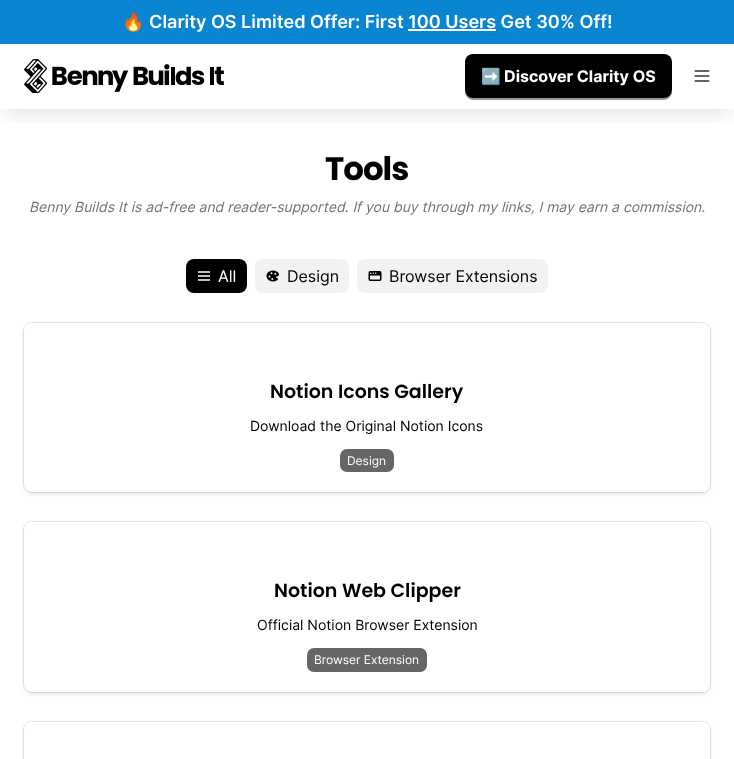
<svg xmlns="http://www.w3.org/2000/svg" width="734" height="759">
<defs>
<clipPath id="clip1"><rect x="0" y="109" width="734" height="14"/></clipPath>
</defs>
<rect width="100%" height="100%" fill="#fff"/>
<rect width="734" height="44" fill="#0a85d1"/>
<text x="122" y="28" style="font-family:Noto Color Emoji;font-size:18px;fill:#fff">🔥</text>
<text x="149" y="28" style="font-family:Inter;font-size:18px;font-weight:600;fill:#fff">Clarity OS Limited Offer: First 100 Users Get 30% Off!</text>
<rect x="408" y="29" width="88" height="2" fill="#fff"/>
<g clip-path="url(#clip1)">
<rect x="6" y="60" width="722" height="53" fill="#0000001f" filter="blur(10px)"/>
</g>
<image x="24" y="59" width="200" height="34" href="media/1.png"/>
<path d="M465 90v2c0 4 4 8 8 8h191c4 0 8-4 8-8v-2c0 4-4 8-8 8h-191c-4 0-8-4-8-8z" fill="#999"/>
<rect x="465" y="54" width="207" height="44" rx="8" fill="#000"/>
<text x="481" y="82" style="font-family:Noto Color Emoji;font-size:16px;font-weight:bold;fill:#fff">➡️</text>
<text x="504" y="82" style="font-family:Inter;font-size:16px;font-weight:bold;fill:#fff">Discover Clarity OS</text>
<image x="694" y="70" width="16" height="12" href="media/2.png"/>
<text x="325" y="180" style="font-family:Poppins;font-size:32.5px;font-weight:bold;letter-spacing:-1px;fill:#000">Tools</text>
<text x="29" y="212" style="font-family:Inter;font-size:14px;font-style:italic;fill:#737373">Benny Builds It is ad-free and reader-supported. If you buy through my links, I may earn a commission.</text>
<rect x="186" y="259" width="61" height="34" rx="8" fill="#000"/>
<image x="198" y="271" width="12" height="10" href="media/3.png"/>
<text x="218" y="282" style="font-family:Inter;font-size:16px;fill:#fff">All</text>
<rect x="255" y="259" width="94" height="34" rx="8" fill="#f2f2f2"/>
<image x="266" y="270" width="13" height="12" href="media/4.png"/>
<text x="287" y="282" style="font-family:Inter;font-size:16px;fill:#000">Design</text>
<rect x="357" y="259" width="191" height="34" rx="8" fill="#f2f2f2"/>
<image x="368" y="271" width="14" height="10" href="media/5.png"/>
<text x="389" y="282" style="font-family:Inter;font-size:16px;fill:#000">Browser Extensions</text>
<rect x="24" y="325" width="686" height="169" rx="8" fill="#0f0f0f1a" filter="blur(2px)"/>
<rect x="23.5" y="322.5" width="687" height="170" rx="8.5" fill="none" stroke="#0f0f0f1a"/>
<rect x="24" y="323" width="686" height="169" rx="8" fill="#fff"/>
<text x="270" y="398" style="font-family:Poppins;font-size:19px;font-weight:600;fill:#000">Notion Icons Gallery</text>
<text x="250" y="431" style="font-family:Inter;font-size:14px;fill:#000">Download the Original Notion Icons</text>
<rect x="340" y="449" width="54" height="23" rx="7" fill="#666"/>
<text x="347" y="465" style="font-family:Inter;font-size:12px;fill:#fff">Design</text>
<rect x="24" y="524" width="686" height="170" rx="8" fill="#0f0f0f1a" filter="blur(2px)"/>
<rect x="23.5" y="521.5" width="687" height="171" rx="8.5" fill="none" stroke="#0f0f0f1a"/>
<rect x="24" y="522" width="686" height="170" rx="8" fill="#fff"/>
<text x="274" y="597" style="font-family:Poppins;font-size:19px;font-weight:600;fill:#000">Notion Web Clipper</text>
<text x="257" y="630" style="font-family:Inter;font-size:14px;fill:#000">Official Notion Browser Extension</text>
<rect x="307" y="648" width="120" height="24" rx="7" fill="#666"/>
<text x="314" y="664" style="font-family:Inter;font-size:12px;fill:#fff">Browser Extension</text>
<rect x="24" y="724" width="686" height="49" rx="8" fill="#0f0f0f1a" filter="blur(2px)"/>
<rect x="23.5" y="721.5" width="687" height="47" rx="8.5" fill="none" stroke="#0f0f0f1a"/>
<rect x="24" y="722" width="686" height="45" rx="8" fill="#fff"/>
</svg>
